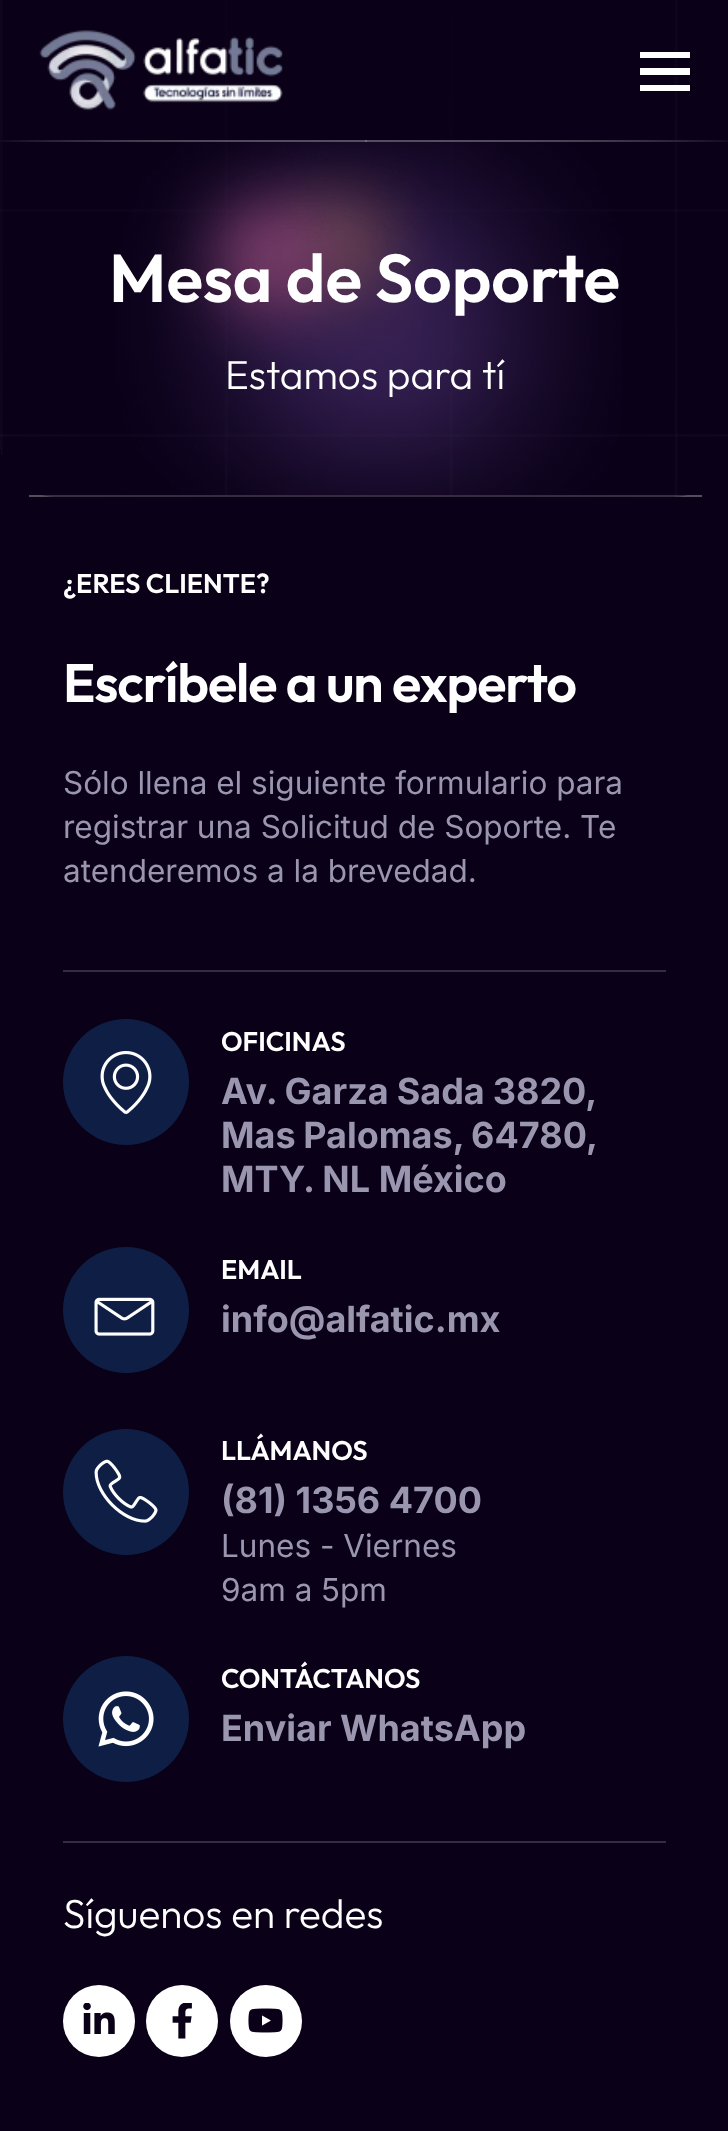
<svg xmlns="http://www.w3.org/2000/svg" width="728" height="2131">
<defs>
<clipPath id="clip1"><path d="M0-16h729v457c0 31-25 56-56 56h-617c-31 0-56-25-56-56z"/></clipPath>
<radialGradient id="g1" gradientUnits="userSpaceOnUse" cx="0" cy="0" r="1" gradientTransform="matrix(515 0 0 722 365 -16)"><stop offset="0.1" stop-color="#0a0118"/><stop offset="1" stop-color="#0a0118" stop-opacity="0.8"/></radialGradient>
<radialGradient id="g2" gradientUnits="userSpaceOnUse" cx="0" cy="0" r="1" gradientTransform="matrix(515 0 0 1.6 365 141)"><stop offset="0" stop-color="#fff" stop-opacity="0.17"/><stop offset="0.8" stop-color="#0a0118"/></radialGradient>
<radialGradient id="g3" gradientUnits="userSpaceOnUse" cx="0" cy="0" r="1" gradientTransform="matrix(515 0 0 722 365 495)"><stop offset="0.1" stop-color="#0a0118"/><stop offset="1" stop-color="#0a0118" stop-opacity="0.8"/></radialGradient>
<radialGradient id="g4" gradientUnits="userSpaceOnUse" cx="0" cy="0" r="1" gradientTransform="matrix(515 0 0 250 365 318)"><stop offset="0" stop-color="#0a0118" stop-opacity="0.5"/><stop offset="1" stop-color="#0a0118" stop-opacity="0.2"/></radialGradient>
</defs>
<rect width="100%" height="100%" fill="#0a0118"/>
<image x="0" y="0" width="728" height="497" href="media/2.png"/>
<g clip-path="url(#clip1)">
<rect width="728" height="495" fill="url(#g1)"/>
</g>
<image x="39" y="30" width="244" height="81" href="media/1.png"/>
<path d="M690 52v6h-50v-6zm-50 23h50v-7h-50zm0 16h50v-6h-50z" fill="#fff"/>
<image x="116" y="141" width="506" height="354" href="media/3.png"/>
<rect y="140" width="728" height="2" fill="url(#g2)"/>
<rect x="365" y="140" width="2" height="2" fill="#726c79"/>
<rect x="29" y="495" width="673" height="2" fill="#ffffff2b"/>
<g clip-path="url(#clip1)">
<rect x="41" y="495" width="647" height="2" fill="url(#g3)"/>
</g>
<rect x="29" y="495" width="673" height="2" fill="#ffffff2b"/>
<rect y="142" width="728" height="353" fill="url(#g4)"/>
<text x="109" y="302" style="font-family:Outfit;font-size:67.5px;font-weight:600;fill:#fff">Mesa de Soporte</text>
<text x="225" y="389" style="font-family:Outfit;font-size:40.5px;font-weight:300;fill:#fff">Estamos para tí</text>
<text x="63" y="593" style="font-family:Outfit;font-size:27px;font-weight:600;fill:#fff">¿ERES CLIENTE?</text>
<text x="63" y="702" style="font-family:Outfit;font-size:54px;font-weight:600;letter-spacing:-1.1px;fill:#fff">Escríbele a un experto</text>
<text x="63" y="794" style="font-family:Inter;font-size:31.5px;fill:#9b96b0">Sólo llena el siguiente formulario para</text>
<text x="63" y="838" style="font-family:Inter;font-size:31.5px;fill:#9b96b0">registrar una Solicitud de Soporte. Te</text>
<text x="63" y="882" style="font-family:Inter;font-size:31.5px;fill:#9b96b0">atenderemos a la brevedad.</text>
<rect x="63" y="970" width="603" height="2" fill="#342c3f"/>
<rect x="63" y="1841" width="603" height="2" fill="#342c3f"/>
<circle cx="126" cy="1082" r="63" fill="#0f1e44"/>
<image x="100" y="1051" width="52" height="63" href="media/4.png"/>
<text x="221" y="1051" style="font-family:Outfit;font-size:27px;font-weight:600;fill:#fff">OFICINAS</text>
<text x="221" y="1104" word-spacing="-0.5" style="font-family:Inter;font-size:36px;font-weight:bold;fill:#9b96b0">Av. Garza Sada 3820,</text>
<text x="221" y="1148" word-spacing="-1" style="font-family:Inter;font-size:36px;font-weight:bold;fill:#9b96b0">Mas Palomas, 64780,</text>
<text x="221" y="1192" style="font-family:Inter;font-size:36px;font-weight:bold;fill:#9b96b0">MTY. NL México</text>
<circle cx="126" cy="1310" r="63" fill="#0f1e44"/>
<image x="94" y="1297" width="61" height="39" href="media/5.png"/>
<text x="221" y="1279" style="font-family:Outfit;font-size:27px;font-weight:600;fill:#fff">EMAIL</text>
<text x="221" y="1332" style="font-family:Inter;font-size:36px;font-weight:bold;fill:#9b96b0">info@alfatic.mx</text>
<circle cx="126" cy="1492" r="63" fill="#0f1e44"/>
<image x="94" y="1459" width="64" height="64" href="media/6.png"/>
<text x="221" y="1460" style="font-family:Outfit;font-size:27px;font-weight:600;fill:#fff">LLÁMANOS</text>
<text x="221" y="1513" style="font-family:Inter;font-size:36px;font-weight:bold;fill:#9b96b0">(81) 1356 4700</text>
<text x="221" y="1557" style="font-family:Inter;font-size:31.5px;fill:#9b96b0">Lunes - Viernes</text>
<text x="221" y="1601" style="font-family:Inter;font-size:31.5px;fill:#9b96b0">9am a 5pm</text>
<circle cx="126" cy="1719" r="63" fill="#0f1e44"/>
<image x="98" y="1691" width="56" height="56" href="media/7.png"/>
<text x="221" y="1688" style="font-family:Outfit;font-size:27px;font-weight:600;fill:#fff">CONTÁCTANOS</text>
<text x="221" y="1741" style="font-family:Inter;font-size:36px;font-weight:bold;fill:#9b96b0">Enviar WhatsApp</text>
<text x="63" y="1928" style="font-family:Outfit;font-size:40.5px;font-weight:300;fill:#fff">Síguenos en redes</text>
<circle cx="99" cy="2021" r="36" fill="#fff"/>
<image x="83" y="2003" width="32" height="31" href="media/8.png"/>
<circle cx="182" cy="2021" r="36" fill="#fff"/>
<image x="172" y="2003" width="20" height="36" href="media/9.png"/>
<circle cx="266" cy="2021" r="36" fill="#fff"/>
<image x="248" y="2008" width="35" height="25" href="media/10.png"/>
</svg>
